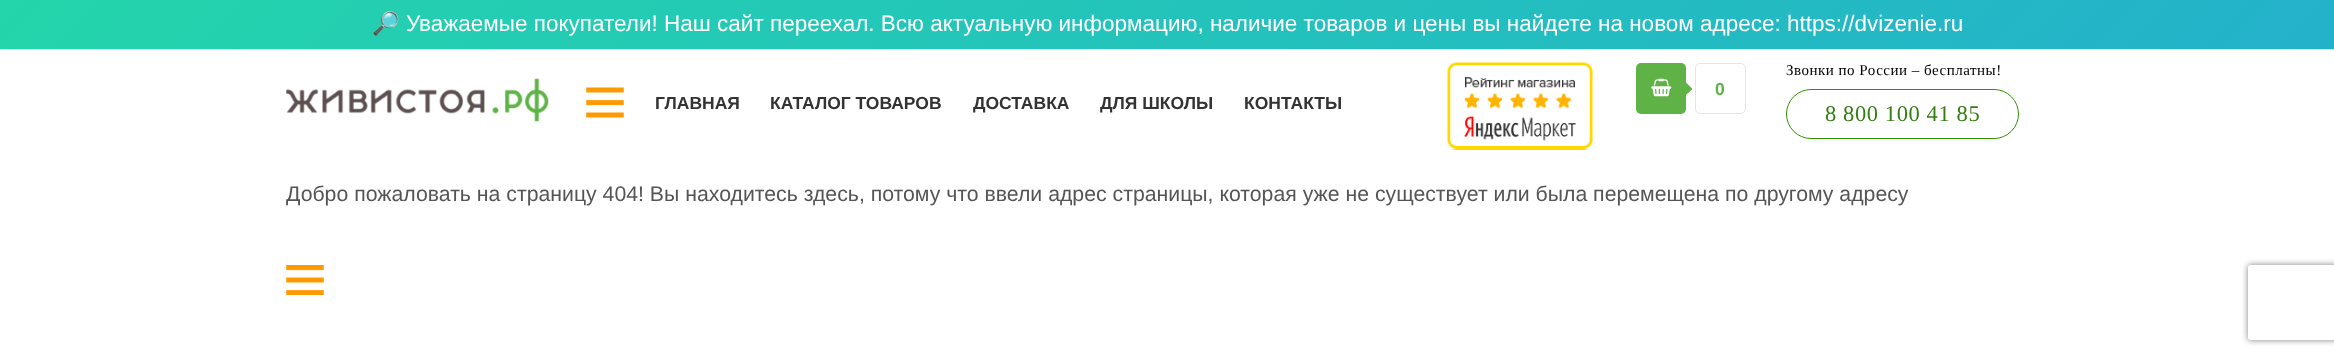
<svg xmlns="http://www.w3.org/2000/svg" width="2334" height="357">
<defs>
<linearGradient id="g1" gradientUnits="userSpaceOnUse" x1="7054" y1="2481" x2="2286" y2="-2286"><stop offset="0" stop-color="#ee7752"/><stop offset="0.33" stop-color="#e73c7e"/><stop offset="0.67" stop-color="#23a6d5"/><stop offset="1" stop-color="#23d5ab"/></linearGradient>
<clipPath id="clip1"><path d="M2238 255h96v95h-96zm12.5 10h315c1.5 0 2.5 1 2.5 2.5v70c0 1.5-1 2.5-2.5 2.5h-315c-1.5 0-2.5-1-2.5-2.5v-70c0-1.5 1-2.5 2.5-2.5z" clip-rule="evenodd"/></clipPath>
</defs>
<rect width="100%" height="100%" fill="#fff"/>
<rect width="2334" height="49" fill="url(#g1)"/>
<rect y="49" width="2334" height="1" fill="#e8e8e8"/>
<text x="372" y="31" style="font-family:Noto Color Emoji;font-size:22.5px;fill:#fff">🔎</text>
<text x="406" y="31" style="font-family:Liberation Sans;font-size:22.5px;fill:#fff">Уважаемые покупатели! Наш сайт переехал. Всю актуальную информацию, наличие товаров и цены вы найдете на новом адресе: https://dvizenie.ru</text>
<image x="286" y="78" width="263" height="44" href="media/1.png"/>
<image x="1447" y="62" width="146" height="88" href="media/2.png"/>
<rect x="1636" y="63" width="50" height="51" rx="5" fill="#5fb246"/>
<image x="1651" y="78" width="21" height="19" href="media/3.png"/>
<path d="M1686 95v-12.5l6.5 6.5z" fill="#5fb246"/>
<rect x="1695.5" y="63.5" width="50" height="50" rx="4.5" fill="none" stroke="#e5e5e5"/>
<text x="1715" y="95" style="font-family:Liberation Sans;font-size:17.5px;font-weight:bold;fill:#5fb246">0</text>
<text x="1786" y="75" style="font-family:Liberation Serif;font-size:15px;letter-spacing:0.5px;fill:#000">Звонки по России – бесплатны!</text>
<rect x="1786.5" y="89.5" width="232" height="49" rx="24.5" fill="none" stroke="#309400"/>
<text x="1825" y="121" style="font-family:Liberation Serif;font-size:22.5px;letter-spacing:0.6px;fill:#337d14">8 800 100 41 85</text>
<image x="586" y="87" width="38" height="31" href="media/4.png"/>
<text x="655" y="109" style="font-family:Liberation Sans;font-size:17.5px;font-weight:bold;fill:#333">ГЛАВНАЯ</text>
<text x="770" y="109" style="font-family:Liberation Sans;font-size:17.5px;font-weight:bold;fill:#333">КАТАЛОГ ТОВАРОВ</text>
<text x="973" y="109" style="font-family:Liberation Sans;font-size:17.5px;font-weight:bold;fill:#333">ДОСТАВКА</text>
<text x="1100" y="109" style="font-family:Liberation Sans;font-size:17.5px;font-weight:bold;fill:#333">ДЛЯ ШКОЛЫ</text>
<text x="1244" y="109" style="font-family:Liberation Sans;font-size:17.5px;font-weight:bold;fill:#333">КОНТАКТЫ</text>
<text x="286" y="201" style="font-family:Liberation Sans;font-size:21.25px;fill:#555">Добро пожаловать на страницу 404! Вы находитесь здесь, потому что ввели адрес страницы, которая уже не существует или была перемещена по другому адресу</text>
<image x="286" y="265" width="38" height="30" href="media/5.png"/>
<g clip-path="url(#clip1)">
<rect x="2248" y="265" width="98" height="75" rx="2.5" fill="#808080" filter="blur(3px)"/>
</g>
</svg>
